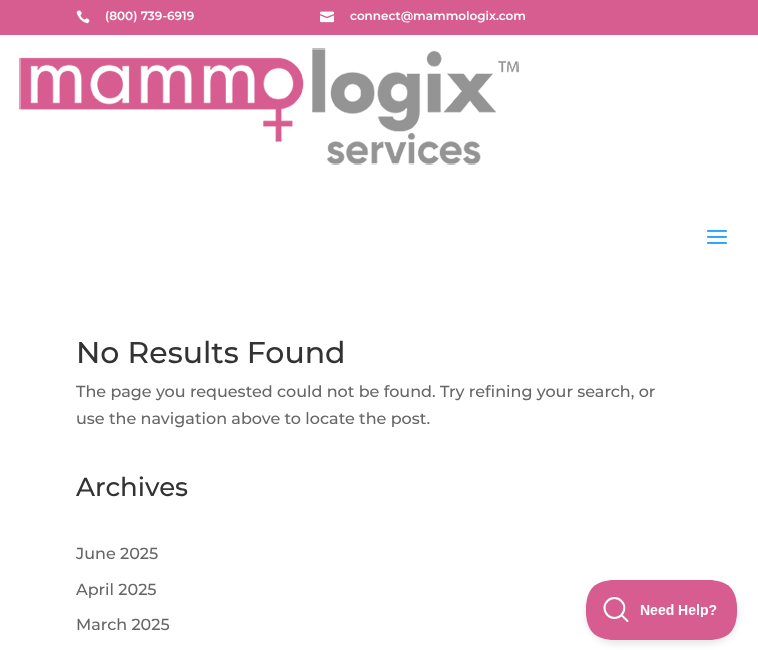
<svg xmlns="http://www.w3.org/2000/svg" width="758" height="650">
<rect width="100%" height="100%" fill="#fff"/>
<rect width="758" height="35" fill="#d75c90"/>
<image x="76" y="10" width="14" height="14" href="media/1.png"/>
<text x="105" y="20" style="font-family:Montserrat;font-size:12px;font-weight:600;fill:#fff">(800) 739-6919</text>
<image x="320" y="11" width="14" height="12" href="media/2.png"/>
<text x="350" y="20" style="font-family:Montserrat;font-size:12px;font-weight:600;fill:#fff">connect@mammologix.com</text>
<image x="19" y="48" width="500" height="117" href="media/3.png"/>
<image x="707" y="229" width="20" height="15" href="media/4.png"/>
<text x="76" y="363" style="font-family:Montserrat;font-size:30px;font-weight:500;fill:#333">No Results Found</text>
<text x="76" y="397" style="font-family:Montserrat;font-size:16px;font-weight:500;fill:#666">The page you requested could not be found. Try refining your search, or</text>
<text x="76" y="424" style="font-family:Montserrat;font-size:16px;font-weight:500;fill:#666">use the navigation above to locate the post.</text>
<text x="76" y="496" style="font-family:Montserrat;font-size:26px;font-weight:500;fill:#333">Archives</text>
<text x="76" y="559" style="font-family:Montserrat;font-size:16px;font-weight:500;fill:#666">June 2025</text>
<text x="76" y="595" style="font-family:Montserrat;font-size:16px;font-weight:500;fill:#666">April 2025</text>
<text x="76" y="630" style="font-family:Montserrat;font-size:16px;font-weight:500;fill:#666">March 2025</text>
<rect x="586" y="584" width="152" height="60" rx="30" fill="#0000001a" filter="blur(3.5px)"/>
<image x="586" y="580" width="151" height="60" href="media/5.png"/>
</svg>
